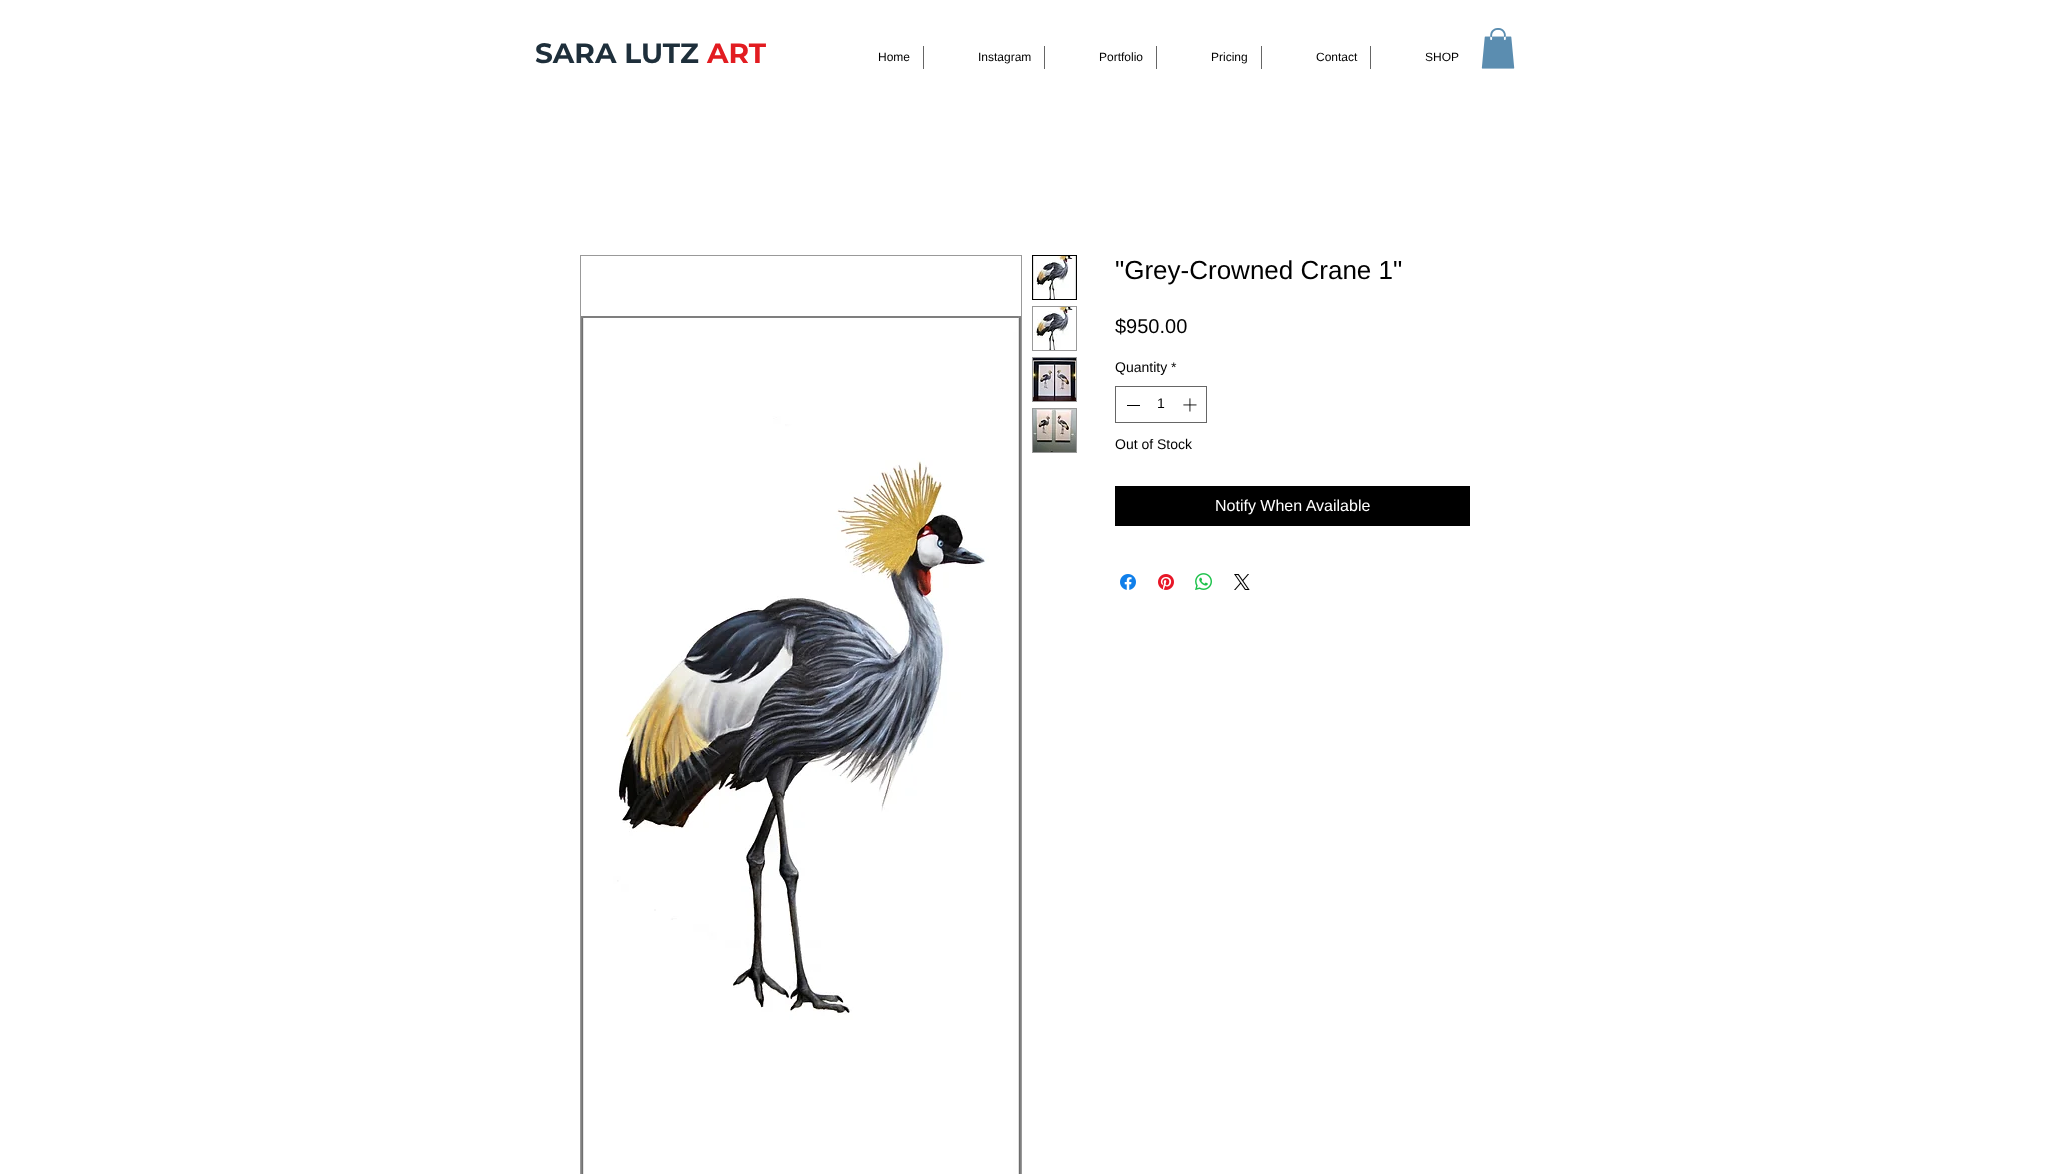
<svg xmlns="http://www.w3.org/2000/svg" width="2050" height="1174">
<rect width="100%" height="100%" fill="#fff"/>
<text x="535" y="63" style="font-family:Montserrat;font-size:28px;font-weight:bold;fill:#1e2f3b">SARA LUTZ</text>
<text x="707" y="63" style="font-family:Montserrat;font-size:28px;font-weight:bold;fill:#e21c21">ART</text>
<text x="878" y="61" style="font-family:Liberation Sans;font-size:12px;fill:#000">Home</text>
<rect x="923" y="46" width="1" height="23" fill="#666"/>
<text x="978" y="61" style="font-family:Liberation Sans;font-size:12px;fill:#000">Instagram</text>
<rect x="1044" y="46" width="1" height="23" fill="#666"/>
<text x="1099" y="61" style="font-family:Liberation Sans;font-size:12px;fill:#000">Portfolio</text>
<rect x="1156" y="46" width="1" height="23" fill="#666"/>
<text x="1211" y="61" style="font-family:Liberation Sans;font-size:12px;fill:#000">Pricing</text>
<rect x="1261" y="46" width="1" height="23" fill="#666"/>
<text x="1316" y="61" style="font-family:Liberation Sans;font-size:12px;fill:#000">Contact</text>
<rect x="1370" y="46" width="1" height="23" fill="#666"/>
<text x="1425" y="61" style="font-family:Liberation Sans;font-size:12px;fill:#000">SHOP</text>
<image x="1481" y="28" width="34" height="41" href="media/1.png"/>
<rect x="580.5" y="255.5" width="441" height="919" fill="none" stroke="#999"/>
<image x="581" y="316" width="440" height="858" href="media/2.png"/>
<rect x="1032.5" y="255.5" width="44" height="44" fill="none" stroke="#000"/>
<image x="1033" y="256" width="43" height="43" href="media/3.png"/>
<rect x="1032.5" y="306.5" width="44" height="44" fill="none" stroke="#999"/>
<image x="1034" y="307" width="39" height="43" href="media/4.png"/>
<rect x="1032.5" y="357.5" width="44" height="44" fill="none" stroke="#999"/>
<image x="1033" y="358" width="43" height="43" href="media/5.png"/>
<rect x="1032.5" y="408.5" width="44" height="44" fill="none" stroke="#999"/>
<image x="1033" y="409" width="43" height="43" href="media/6.png"/>
<text x="1115" y="279" style="font-family:Liberation Sans;font-size:26px;fill:#000">"Grey-Crowned Crane 1"</text>
<text x="1115" y="333" style="font-family:Liberation Sans;font-size:20px;fill:#000">$950.00</text>
<text x="1115" y="372" style="font-family:Liberation Sans;font-size:14px;fill:#000">Quantity *</text>
<rect x="1115.5" y="386.5" width="91" height="36" fill="none" stroke="#666"/>
<rect x="1127" y="405" width="13" height="1" fill="#000"/>
<text x="1157" y="408" style="font-family:Liberation Sans;font-size:14px;fill:#000">1</text>
<image x="1183" y="398" width="14" height="14" href="media/7.png"/>
<text x="1115" y="449" style="font-family:Liberation Sans;font-size:14px;fill:#000">Out of Stock</text>
<rect x="1115" y="486" width="355" height="40" fill="#000"/>
<text x="1215" y="511" style="font-family:Liberation Sans;font-size:16px;fill:#fff">Notify When Available</text>
<image x="1120" y="574" width="16" height="16" href="media/8.png"/>
<image x="1158" y="574" width="16" height="16" href="media/9.png"/>
<image x="1195" y="573" width="17" height="17" href="media/10.png"/>
<image x="1234" y="574" width="16" height="16" href="media/11.png"/>
</svg>
